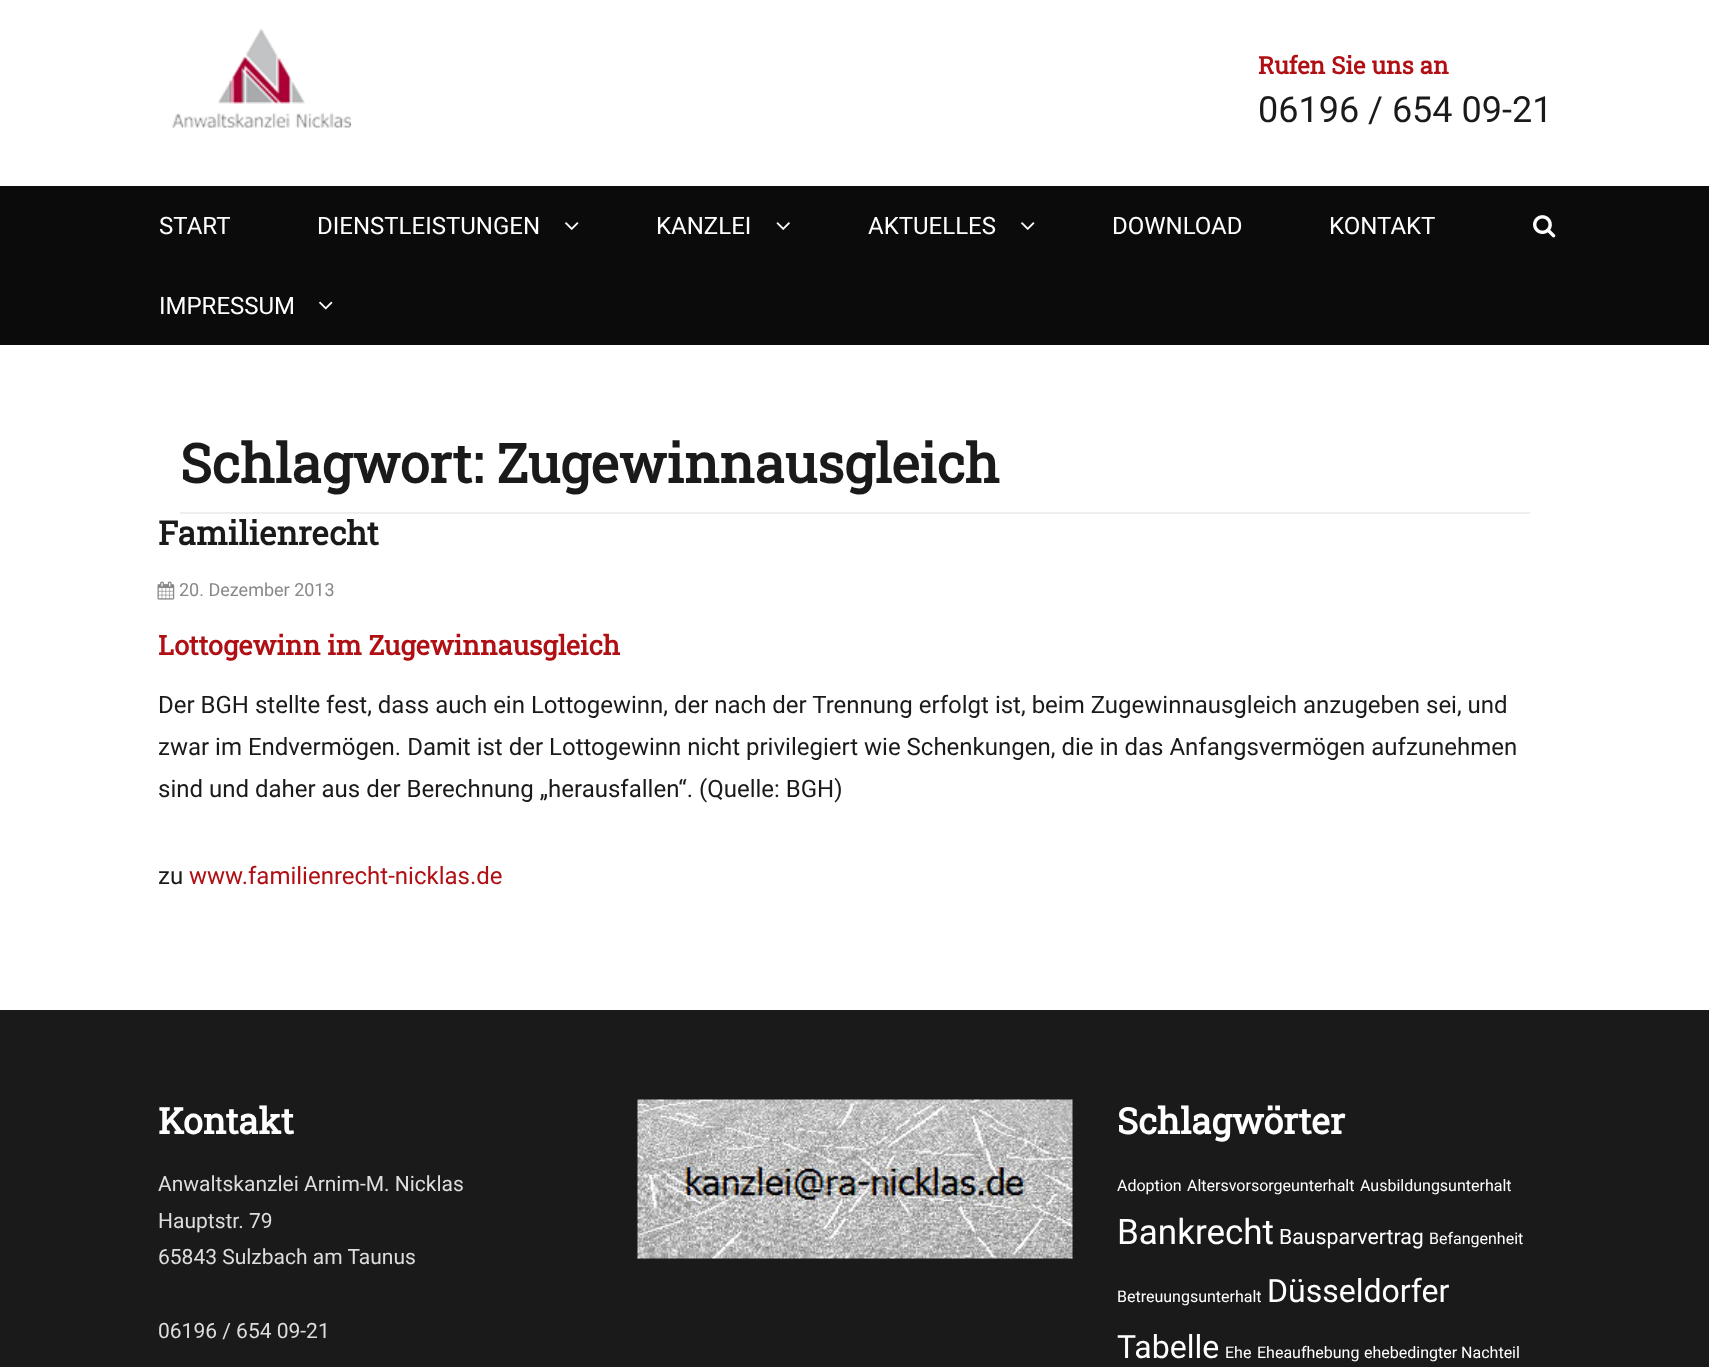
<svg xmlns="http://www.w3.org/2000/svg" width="1709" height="1367">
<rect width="100%" height="100%" fill="#fff"/>
<image x="172" y="28" width="179" height="100" href="media/1.png"/>
<text x="1258" y="74" style="font-family:Roboto Slab;font-size:24px;font-weight:bold;fill:#b00f14">Rufen Sie uns an</text>
<text x="1258" y="122" style="font-family:Roboto;font-size:36px;fill:#1a1a1a">06196 / 654 09-21</text>
<rect y="186" width="1709" height="159" fill="#0b0b0b"/>
<text x="159" y="234" style="font-family:Roboto;font-size:24px;fill:#fff">START</text>
<text x="317" y="234" style="font-family:Roboto;font-size:24px;fill:#fff">DIENSTLEISTUNGEN</text>
<image x="565" y="222" width="14" height="8" href="media/2.png"/>
<text x="656" y="234" style="font-family:Roboto;font-size:24px;fill:#fff">KANZLEI</text>
<image x="776" y="222" width="14" height="8" href="media/3.png"/>
<text x="868" y="234" style="font-family:Roboto;font-size:24px;fill:#fff">AKTUELLES</text>
<image x="1021" y="222" width="14" height="8" href="media/2.png"/>
<text x="1112" y="234" style="font-family:Roboto;font-size:24px;fill:#fff">DOWNLOAD</text>
<text x="1329" y="234" style="font-family:Roboto;font-size:24px;fill:#fff">KONTAKT</text>
<text x="159" y="314" style="font-family:Roboto;font-size:24px;fill:#fff">IMPRESSUM</text>
<image x="319" y="301" width="14" height="9" href="media/4.png"/>
<image x="1533" y="215" width="23" height="23" href="media/5.png"/>
<rect x="180" y="512" width="1350" height="2" fill="#eee"/>
<text x="180" y="483" style="font-family:Roboto Slab;font-size:54px;font-weight:bold;fill:#1a1a1a">Schlagwort: Zugewinnausgleich</text>
<text x="158" y="545" style="font-family:Roboto Slab;font-size:33px;font-weight:bold;fill:#1a1a1a">Familienrecht</text>
<image x="157" y="581" width="18" height="19" href="media/6.png"/>
<text x="179" y="596" style="font-family:Roboto;font-size:18px;fill:#888">20. Dezember 2013</text>
<text x="158" y="655" style="font-family:Roboto Slab;font-size:27px;font-weight:bold;fill:#b00f14">Lottogewinn im Zugewinnausgleich</text>
<text x="158" y="713" style="font-family:Roboto;font-size:24px;fill:#1a1a1a">Der BGH stellte fest, dass auch ein Lottogewinn, der nach der Trennung erfolgt ist, beim Zugewinnausgleich anzugeben sei, und</text>
<text x="158" y="755" style="font-family:Roboto;font-size:24px;fill:#1a1a1a">zwar im Endvermögen. Damit ist der Lottogewinn nicht privilegiert wie Schenkungen, die in das Anfangsvermögen aufzunehmen</text>
<text x="158" y="797" style="font-family:Roboto;font-size:24px;fill:#1a1a1a">sind und daher aus der Berechnung „herausfallen“. (Quelle: BGH)</text>
<text x="158" y="884" style="font-family:Roboto;font-size:24px;fill:#1a1a1a">zu</text>
<text x="189" y="884" style="font-family:Roboto;font-size:24px;fill:#b00f14">www.familienrecht-nicklas.de</text>
<rect y="1010" width="1709" height="357" fill="#1a1a1a"/>
<text x="158" y="1134" style="font-family:Roboto Slab;font-size:36px;font-weight:bold;fill:#fff">Kontakt</text>
<text x="158" y="1191" style="font-family:Roboto;font-size:21px;fill:#ddd">Anwaltskanzlei Arnim-M. Nicklas</text>
<text x="158" y="1228" style="font-family:Roboto;font-size:21px;fill:#ddd">Hauptstr. 79</text>
<text x="158" y="1264" style="font-family:Roboto;font-size:21px;fill:#ddd">65843 Sulzbach am Taunus</text>
<text x="158" y="1338" style="font-family:Roboto;font-size:21px;fill:#ddd">06196 / 654 09-21</text>
<image x="637" y="1099" width="436" height="160" href="media/7.png"/>
<text x="1117" y="1134" style="font-family:Roboto Slab;font-size:36px;font-weight:bold;fill:#fff">Schlagwörter</text>
<text x="1117" y="1191" style="font-family:Roboto;font-size:16px;fill:#fff">Adoption</text>
<text x="1187" y="1191" style="font-family:Roboto;font-size:16px;fill:#fff">Altersvorsorgeunterhalt</text>
<text x="1360" y="1191" style="font-family:Roboto;font-size:16px;fill:#fff">Ausbildungsunterhalt</text>
<text x="1117" y="1244" style="font-family:Roboto;font-size:35px;fill:#fff">Bankrecht</text>
<text x="1279" y="1244" style="font-family:Roboto;font-size:21.25px;fill:#fff">Bausparvertrag</text>
<text x="1429" y="1244" style="font-family:Roboto;font-size:16px;fill:#fff">Befangenheit</text>
<text x="1117" y="1302" style="font-family:Roboto;font-size:16px;fill:#fff">Betreuungsunterhalt</text>
<text x="1267" y="1302" style="font-family:Roboto;font-size:32px;fill:#fff">Düsseldorfer</text>
<text x="1117" y="1358" style="font-family:Roboto;font-size:32px;fill:#fff">Tabelle</text>
<text x="1225" y="1358" style="font-family:Roboto;font-size:16px;fill:#fff">Ehe</text>
<text x="1257" y="1358" style="font-family:Roboto;font-size:16px;fill:#fff">Eheaufhebung</text>
<text x="1364" y="1358" style="font-family:Roboto;font-size:16px;fill:#fff">ehebedingter Nachteil</text>
</svg>
